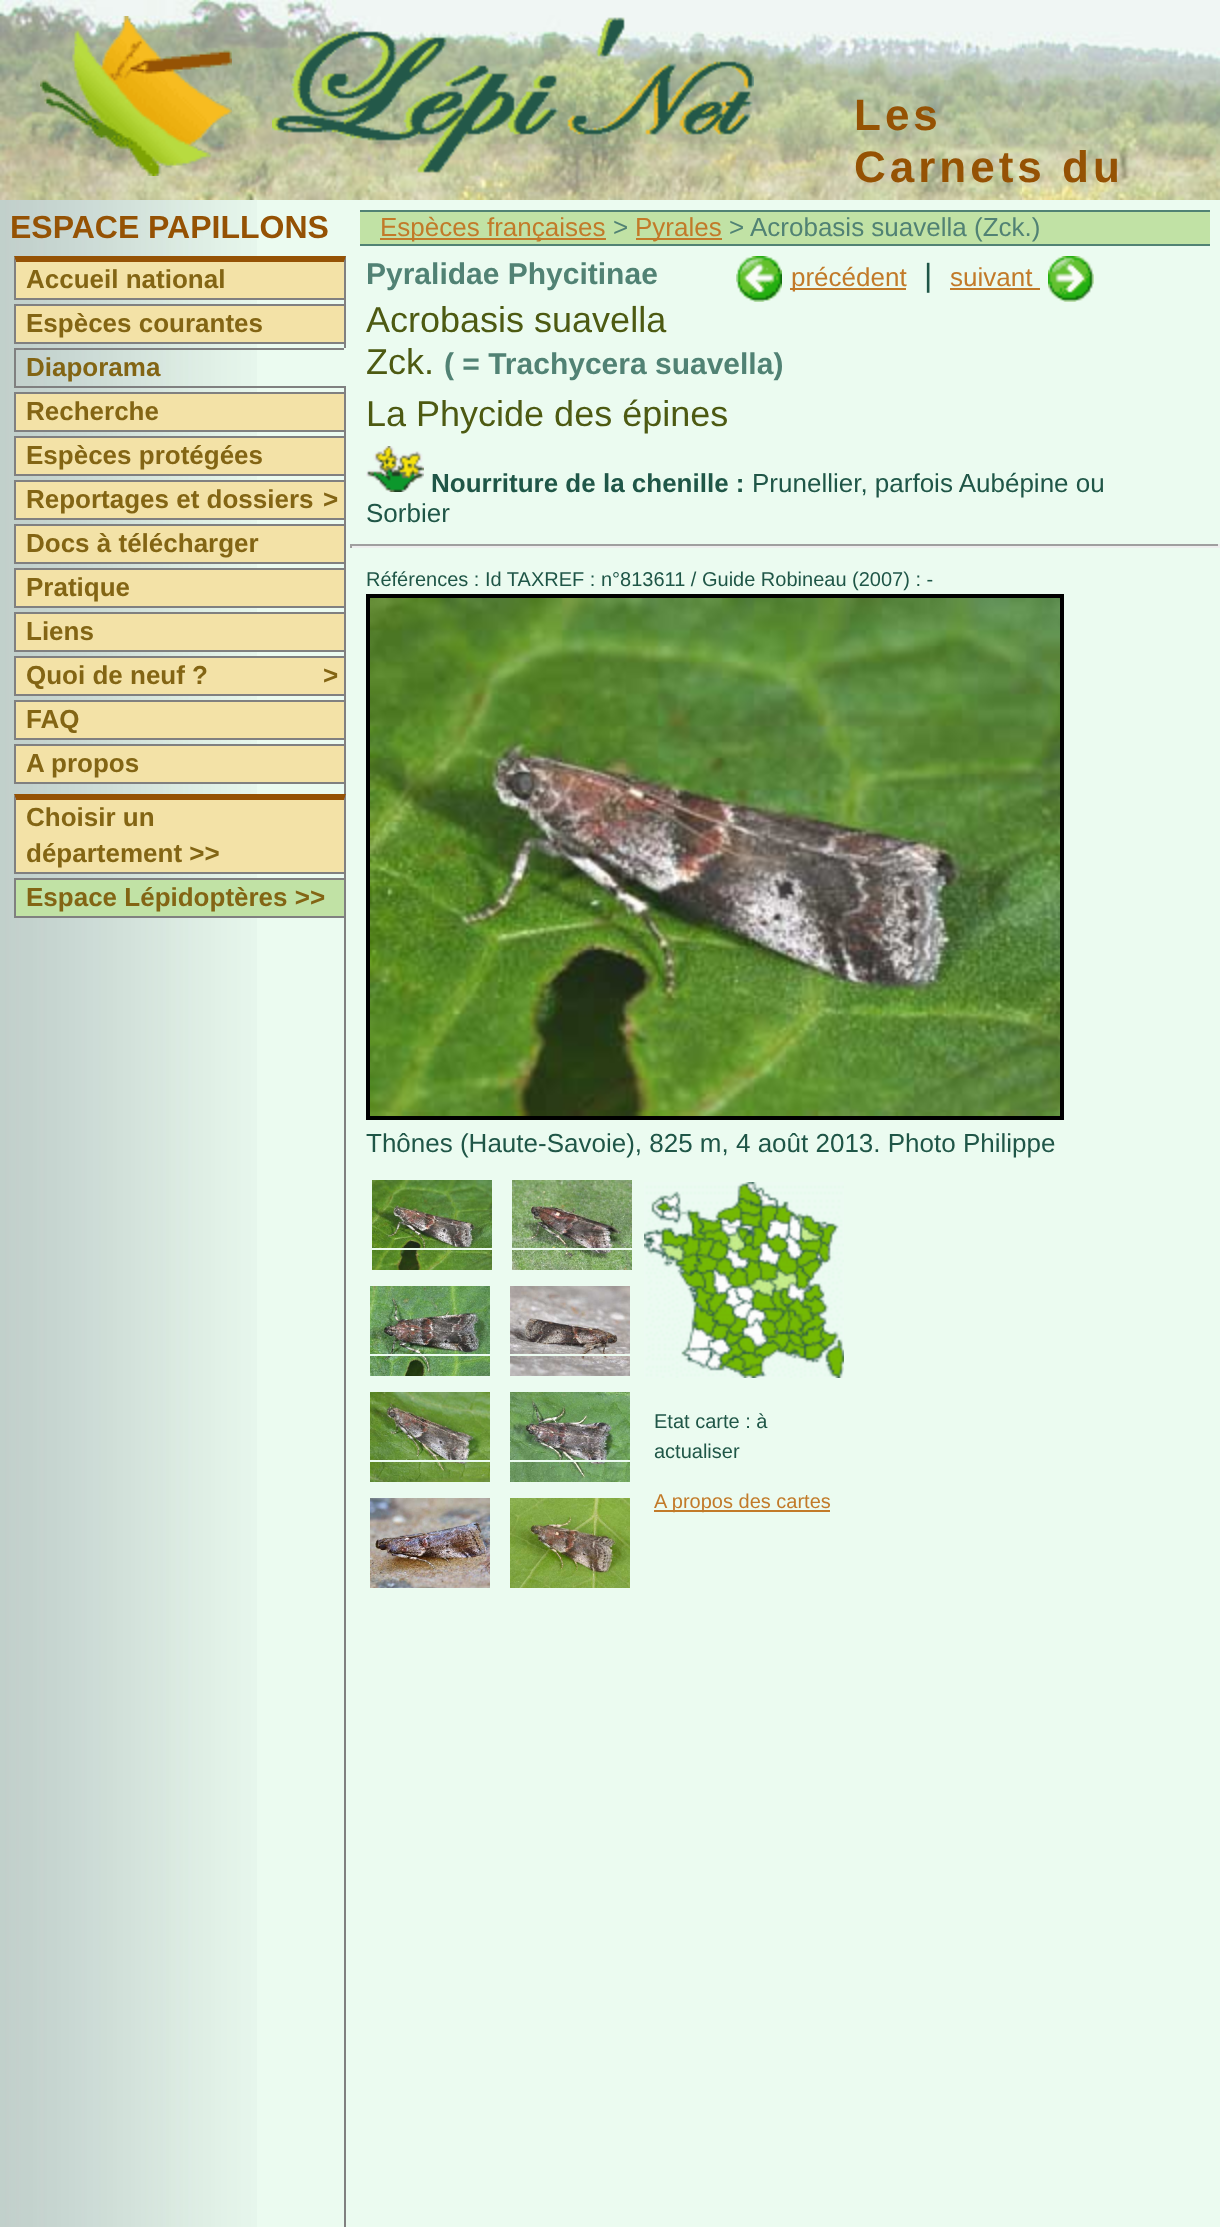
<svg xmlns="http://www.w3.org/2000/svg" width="1220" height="2227">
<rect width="100%" height="100%" fill="#ebfbf0"/>
<image x="0" y="0" width="1220" height="200" href="media/1.png"/>
<image x="40" y="16" width="192" height="160" href="media/2.png"/>
<image x="272" y="17" width="482" height="156" href="media/3.png"/>
<text x="854" y="130" style="font-family:Liberation Sans;font-size:44px;font-weight:bold;letter-spacing:4px;fill:#955204">Les</text>
<text x="854" y="182" style="font-family:Liberation Sans;font-size:44px;font-weight:bold;letter-spacing:4px;fill:#955204">Carnets du</text>
<image x="0" y="200" width="257" height="2027" href="media/4.png"/>
<text x="10" y="238" style="font-family:Liberation Sans;font-size:32px;font-weight:bold;fill:#955204">ESPACE PAPILLONS</text>
<rect x="344" y="256" width="2" height="1971" fill="#808080"/>
<rect x="16" y="262" width="328" height="36" fill="#f3e2a7"/>
<path d="M14 256h332l-2 6h-328z" fill="#955204"/>
<path d="M346 256v44l-2-2v-36z" fill="#808080"/>
<rect x="14" y="298" width="332" height="2" fill="#808080"/>
<path d="M14 300v-44l2 6v36z" fill="#808080"/>
<text x="26" y="288" style="font-family:Liberation Sans;font-size:26px;font-weight:bold;fill:#836514">Accueil national</text>
<rect x="15" y="305" width="330" height="38" fill="#f3e2a7" stroke="#808080" stroke-width="2"/>
<text x="26" y="332" style="font-family:Liberation Sans;font-size:26px;font-weight:bold;fill:#836514">Espèces courantes</text>
<rect x="14" y="348" width="332" height="2" fill="#808080"/>
<rect x="344" y="348" width="2" height="40" fill="#ebfbf0"/>
<rect x="14" y="386" width="332" height="2" fill="#808080"/>
<rect x="14" y="348" width="2" height="40" fill="#808080"/>
<text x="26" y="376" style="font-family:Liberation Sans;font-size:26px;font-weight:bold;fill:#836514">Diaporama</text>
<rect x="15" y="393" width="330" height="38" fill="#f3e2a7" stroke="#808080" stroke-width="2"/>
<text x="26" y="420" style="font-family:Liberation Sans;font-size:26px;font-weight:bold;fill:#836514">Recherche</text>
<rect x="15" y="437" width="330" height="38" fill="#f3e2a7" stroke="#808080" stroke-width="2"/>
<text x="26" y="464" style="font-family:Liberation Sans;font-size:26px;font-weight:bold;fill:#836514">Espèces protégées</text>
<rect x="15" y="481" width="330" height="38" fill="#f3e2a7" stroke="#808080" stroke-width="2"/>
<text x="26" y="508" style="font-family:Liberation Sans;font-size:26px;font-weight:bold;fill:#836514">Reportages et dossiers</text>
<text x="323" y="508" style="font-family:Liberation Sans;font-size:26px;font-weight:bold;fill:#836514">&gt;</text>
<rect x="15" y="525" width="330" height="38" fill="#f3e2a7" stroke="#808080" stroke-width="2"/>
<text x="26" y="552" style="font-family:Liberation Sans;font-size:26px;font-weight:bold;fill:#836514">Docs à télécharger</text>
<rect x="15" y="569" width="330" height="38" fill="#f3e2a7" stroke="#808080" stroke-width="2"/>
<text x="26" y="596" style="font-family:Liberation Sans;font-size:26px;font-weight:bold;fill:#836514">Pratique</text>
<rect x="15" y="613" width="330" height="38" fill="#f3e2a7" stroke="#808080" stroke-width="2"/>
<text x="26" y="640" style="font-family:Liberation Sans;font-size:26px;font-weight:bold;fill:#836514">Liens</text>
<rect x="15" y="657" width="330" height="38" fill="#f3e2a7" stroke="#808080" stroke-width="2"/>
<text x="26" y="684" style="font-family:Liberation Sans;font-size:26px;font-weight:bold;fill:#836514">Quoi de neuf ?</text>
<text x="323" y="684" style="font-family:Liberation Sans;font-size:26px;font-weight:bold;fill:#836514">&gt;</text>
<rect x="15" y="701" width="330" height="38" fill="#f3e2a7" stroke="#808080" stroke-width="2"/>
<text x="26" y="728" style="font-family:Liberation Sans;font-size:26px;font-weight:bold;fill:#836514">FAQ</text>
<rect x="15" y="745" width="330" height="38" fill="#f3e2a7" stroke="#808080" stroke-width="2"/>
<text x="26" y="772" style="font-family:Liberation Sans;font-size:26px;font-weight:bold;fill:#836514">A propos</text>
<rect x="16" y="800" width="328" height="72" fill="#f3e2a7"/>
<path d="M14 794h332l-2 6h-328z" fill="#955204"/>
<path d="M346 794v80l-2-2v-72z" fill="#808080"/>
<rect x="14" y="872" width="332" height="2" fill="#808080"/>
<path d="M14 874v-80l2 6v72z" fill="#808080"/>
<text x="26" y="826" style="font-family:Liberation Sans;font-size:26px;font-weight:bold;fill:#836514">Choisir un</text>
<text x="26" y="862" style="font-family:Liberation Sans;font-size:26px;font-weight:bold;fill:#836514">département &gt;&gt;</text>
<rect x="15" y="879" width="330" height="38" fill="#c1e2a5" stroke="#808080" stroke-width="2"/>
<text x="26" y="906" style="font-family:Liberation Sans;font-size:26px;font-weight:bold;fill:#836514">Espace Lépidoptères &gt;&gt;</text>
<rect x="360" y="212" width="850" height="32" fill="#c1e2a5"/>
<rect x="360" y="210" width="850" height="2" fill="#518274"/>
<rect x="360" y="244" width="850" height="2" fill="#518274"/>
<rect x="380" y="238" width="226" height="2" fill="#c27a29"/>
<text x="380" y="236" style="font-family:Liberation Sans;font-size:26px;fill:#c27a29">Espèces françaises</text>
<text x="613" y="236" style="font-family:Liberation Sans;font-size:26px;fill:#518274">&gt;</text>
<rect x="636" y="238" width="86" height="2" fill="#c27a29"/>
<text x="635" y="236" style="font-family:Liberation Sans;font-size:26px;fill:#c27a29">Pyrales</text>
<text x="729" y="236" style="font-family:Liberation Sans;font-size:26px;fill:#518274">&gt; Acrobasis suavella (Zck.)</text>
<text x="366" y="284" style="font-family:Liberation Sans;font-size:30px;font-weight:bold;fill:#518274">Pyralidae Phycitinae</text>
<text x="366" y="332" style="font-family:Liberation Sans;font-size:36px;fill:#4d5a12">Acrobasis suavella</text>
<text x="366" y="374" style="font-family:Liberation Sans;font-size:36px;fill:#4d5a12">Zck.</text>
<text x="444" y="374" style="font-family:Liberation Sans;font-size:30px;font-weight:bold;fill:#518274">( = Trachycera suavella)</text>
<text x="366" y="426" style="font-family:Liberation Sans;font-size:36px;fill:#4d5a12">La Phycide des épines</text>
<image x="366" y="446" width="58" height="46" href="media/5.png"/>
<text x="431" y="492" style="font-family:Liberation Sans;font-size:26px;font-weight:bold;fill:#1f5647">Nourriture de la chenille :</text>
<text x="752" y="492" style="font-family:Liberation Sans;font-size:26px;fill:#1f5647">Prunellier, parfois Aubépine ou</text>
<text x="366" y="522" style="font-family:Liberation Sans;font-size:26px;fill:#1f5647">Sorbier</text>
<image x="736" y="256" width="46" height="46" href="media/6.png"/>
<rect x="790" y="288" width="116" height="2" fill="#c27a29"/>
<text x="791" y="286" style="font-family:Liberation Sans;font-size:26px;fill:#c27a29">précédent</text>
<text x="924" y="286" style="font-family:Liberation Sans;font-size:32px;fill:#1f5647">|</text>
<text x="950" y="286" style="font-family:Liberation Sans;font-size:26px;fill:#c27a29">suivant</text>
<rect x="950" y="288" width="90" height="2" fill="#c27a29"/>
<image x="1048" y="256" width="46" height="46" href="media/7.png"/>
<rect x="350" y="544" width="870" height="2" fill="#9f9f9f"/>
<rect x="1218" y="544" width="2" height="4" fill="#eee"/>
<rect x="350" y="546" width="870" height="2" fill="#eee"/>
<rect x="350" y="544" width="2" height="4" fill="#9f9f9f"/>
<text x="366" y="586" style="font-family:Liberation Sans;font-size:20px;fill:#1f5647">Références : Id TAXREF : n°813611 / Guide Robineau (2007) : -</text>
<rect x="368" y="596" width="694" height="522" fill="none" stroke="#000" stroke-width="4"/>
<image x="370" y="598" width="690" height="518" href="media/8.png"/>
<text x="366" y="1152" style="font-family:Liberation Sans;font-size:26px;fill:#1f5647">Thônes (Haute-Savoie), 825 m, 4 août 2013. Photo Philippe</text>
<image x="372" y="1180" width="120" height="90" href="media/9.png"/>
<image x="512" y="1180" width="120" height="90" href="media/10.png"/>
<rect x="367" y="1249" width="272" height="138" fill="none" stroke="#ebfbf0" stroke-width="2"/>
<image x="370" y="1286" width="120" height="90" href="media/11.png"/>
<image x="510" y="1286" width="120" height="90" href="media/12.png"/>
<rect x="367" y="1355" width="270" height="138" fill="none" stroke="#ebfbf0" stroke-width="2"/>
<image x="370" y="1392" width="120" height="90" href="media/13.png"/>
<image x="510" y="1392" width="120" height="90" href="media/14.png"/>
<rect x="367" y="1461" width="270" height="138" fill="none" stroke="#ebfbf0" stroke-width="2"/>
<image x="370" y="1498" width="120" height="90" href="media/15.png"/>
<image x="510" y="1498" width="120" height="90" href="media/16.png"/>
<image x="644" y="1182" width="200" height="196" href="media/17.png"/>
<text x="654" y="1428" style="font-family:Liberation Sans;font-size:20px;fill:#1f5647">Etat carte : à</text>
<text x="654" y="1458" style="font-family:Liberation Sans;font-size:20px;fill:#1f5647">actualiser</text>
<rect x="654" y="1510" width="176" height="2" fill="#c27a29"/>
<text x="654" y="1508" style="font-family:Liberation Sans;font-size:20px;fill:#c27a29">A propos des cartes</text>
</svg>
